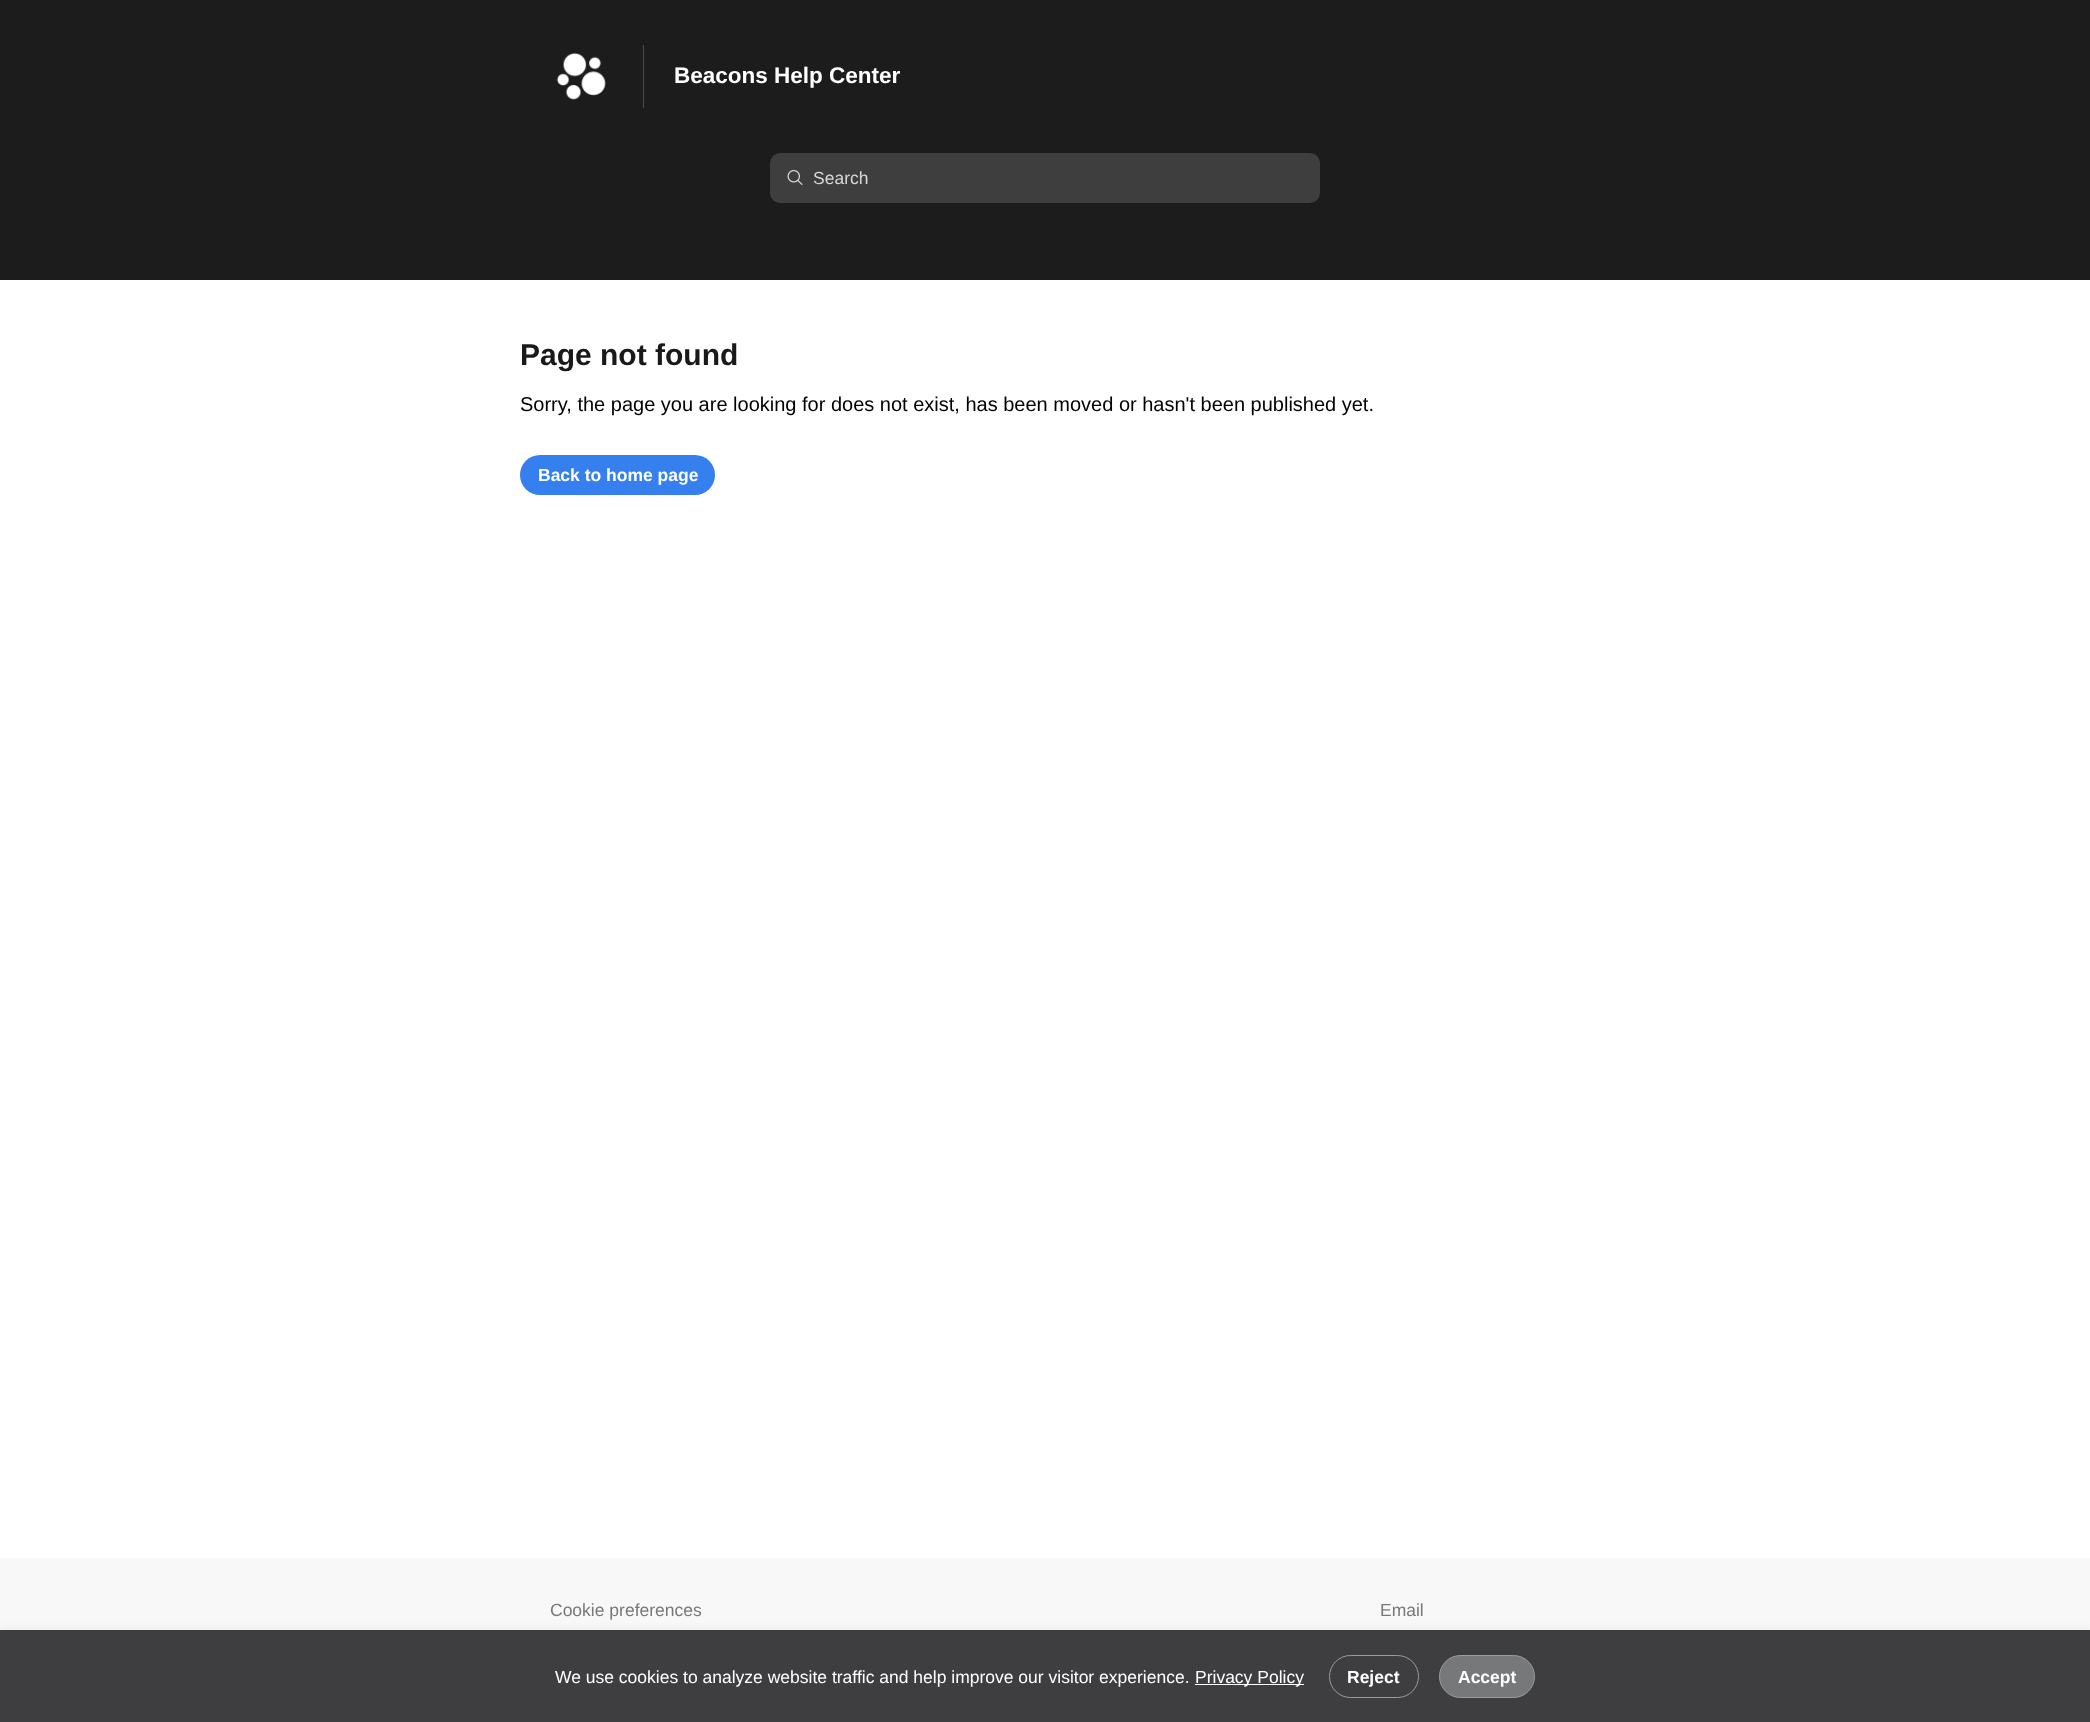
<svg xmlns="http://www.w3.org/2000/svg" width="2090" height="1722">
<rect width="100%" height="100%" fill="#fff"/>
<rect width="2090" height="280" fill="#1c1c1c"/>
<image x="556" y="52" width="50" height="48" href="media/1.png"/>
<rect x="643" y="45" width="1" height="63" fill="#494949"/>
<text x="674" y="83" style="font-family:Liberation Sans;font-size:22.5px;font-weight:bold;fill:#fff">Beacons Help Center</text>
<rect x="770" y="153" width="550" height="50" rx="10" fill="#3e3e3e"/>
<image x="787" y="170" width="16" height="15" href="media/2.png"/>
<text x="813" y="184" style="font-family:Liberation Sans;font-size:17.5px;fill:#d8d8d8">Search</text>
<text x="520" y="365" style="font-family:Liberation Sans;font-size:30px;font-weight:bold;fill:#19191a">Page not found</text>
<text x="520" y="411" style="font-family:Liberation Sans;font-size:20px;fill:#000">Sorry, the page you are looking for does not exist, has been moved or hasn't been published yet.</text>
<rect x="520" y="455" width="195" height="40" rx="20" fill="#367fee"/>
<text x="538" y="481" style="font-family:Liberation Sans;font-size:17.5px;font-weight:bold;fill:#fff">Back to home page</text>
<rect y="1558" width="2090" height="72" fill="#f8f8f8"/>
<text x="550" y="1616" style="font-family:Liberation Sans;font-size:17.5px;fill:#77787a">Cookie preferences</text>
<text x="1380" y="1616" style="font-family:Liberation Sans;font-size:17.5px;fill:#77787a">Email</text>
<rect y="1631" width="2090" height="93" fill="#00000014" filter="blur(5.5px)"/>
<rect y="1630" width="2090" height="92" fill="#3e3e40"/>
<text x="555" y="1683" style="font-family:Liberation Sans;font-size:17.5px;fill:#fff">We use cookies to analyze website traffic and help improve our visitor experience.</text>
<rect x="1195" y="1684" width="109" height="1" fill="#fff"/>
<text x="1195" y="1683" style="font-family:Liberation Sans;font-size:17.5px;fill:#fff">Privacy Policy</text>
<rect x="1329.5" y="1655.5" width="89" height="42" rx="21" fill="none" stroke="#9b9c9e"/>
<text x="1347" y="1683" style="font-family:Liberation Sans;font-size:17.5px;font-weight:bold;fill:#fff">Reject</text>
<rect x="1439.5" y="1655.5" width="95" height="42" rx="21" fill="#77787a" stroke="#9b9c9e"/>
<text x="1458" y="1683" style="font-family:Liberation Sans;font-size:17.5px;font-weight:bold;fill:#fff">Accept</text>
</svg>
